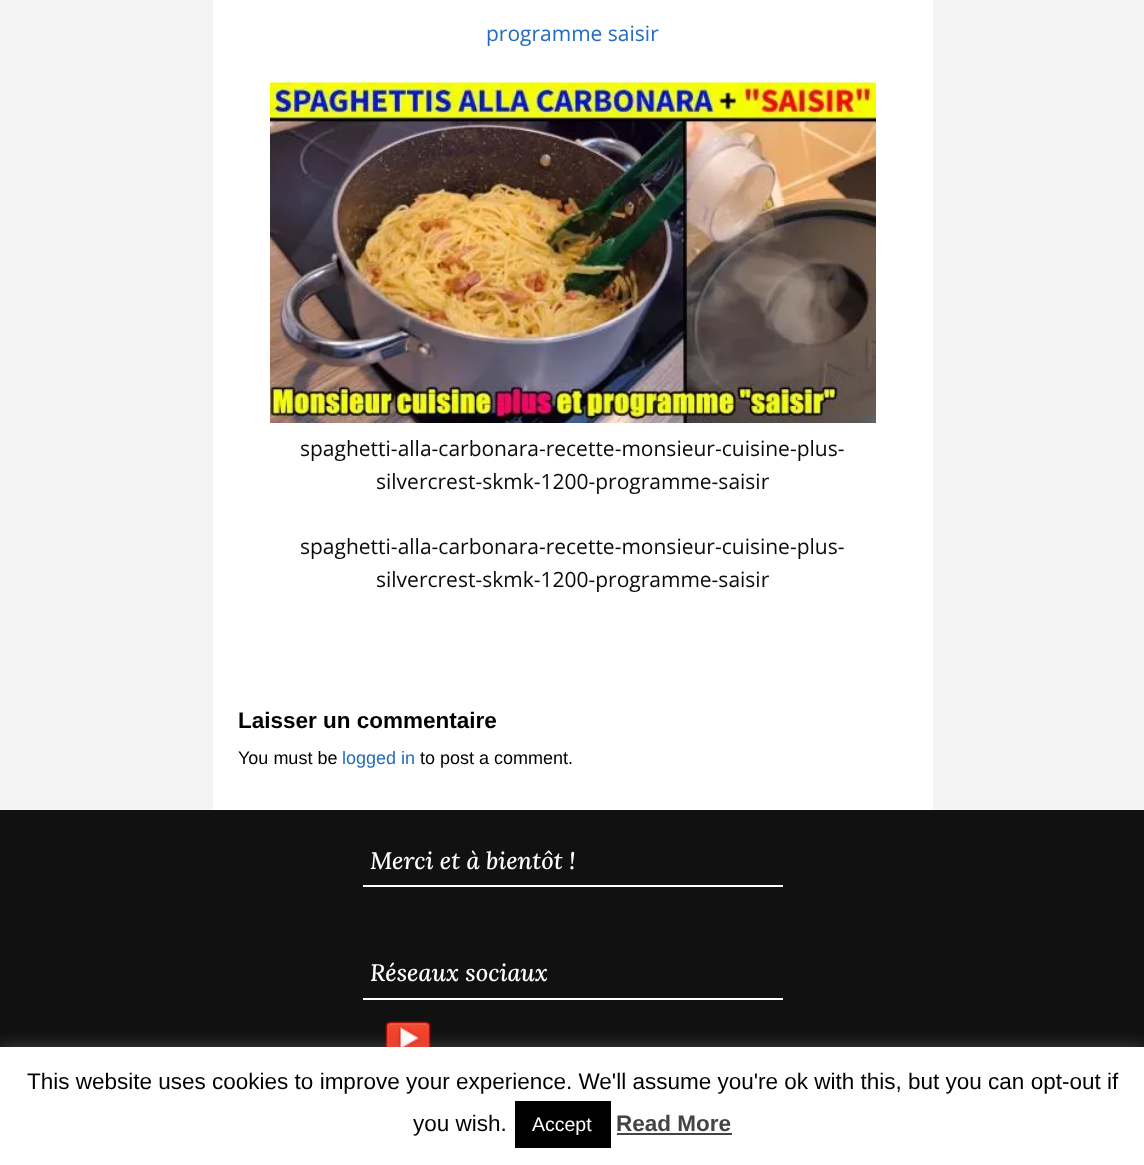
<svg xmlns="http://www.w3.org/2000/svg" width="1144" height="1165">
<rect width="100%" height="100%" fill="#f4f4f4"/>
<rect x="213" width="720" height="810" fill="#fff"/>
<text x="486" y="41" style="font-family:Open Sans;font-size:21px;fill:#236cbf">programme saisir</text>
<image x="270" y="82" width="606" height="341" href="media/1.png"/>
<text x="300" y="456" style="font-family:Open Sans;font-size:21px;fill:#0a0a0a">spaghetti-alla-carbonara-recette-monsieur-cuisine-plus-</text>
<text x="376" y="489" style="font-family:Open Sans;font-size:21px;fill:#0a0a0a">silvercrest-skmk-1200-programme-saisir</text>
<text x="300" y="554" style="font-family:Open Sans;font-size:21px;fill:#0a0a0a">spaghetti-alla-carbonara-recette-monsieur-cuisine-plus-</text>
<text x="376" y="587" style="font-family:Open Sans;font-size:21px;fill:#0a0a0a">silvercrest-skmk-1200-programme-saisir</text>
<text x="238" y="728" style="font-family:Liberation Sans;font-size:22.5px;font-weight:bold;fill:#000">Laisser un commentaire</text>
<text x="238" y="764" style="font-family:Liberation Sans;font-size:18px;fill:#000">You must be</text>
<text x="342" y="764" style="font-family:Liberation Sans;font-size:18px;fill:#236cbf">logged in</text>
<text x="420" y="764" style="font-family:Liberation Sans;font-size:18px;fill:#000">to post a comment.</text>
<rect y="810" width="1144" height="237" fill="#111"/>
<rect x="363" y="885" width="420" height="2" fill="#fff"/>
<text x="370" y="869" style="font-family:Lora;font-size:24px;font-weight:500;font-style:italic;fill:#fff">Merci et à bientôt !</text>
<rect x="363" y="998" width="420" height="2" fill="#fff"/>
<text x="370" y="981" style="font-family:Lora;font-size:24px;font-weight:500;font-style:italic;fill:#fff">Réseaux sociaux</text>
<image x="385" y="1021" width="46" height="26" href="media/2.png"/>
<rect y="1046" width="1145" height="118" fill="#acabab4d" filter="blur(7.5px)"/>
<rect y="1047" width="1144" height="118" fill="#fff"/>
<text x="27" y="1089" style="font-family:Liberation Sans;font-size:22.5px;fill:#000">This website uses cookies to improve your experience. We'll assume you're ok with this, but you can opt-out if</text>
<text x="413" y="1131" style="font-family:Liberation Sans;font-size:22.5px;fill:#000">you wish.</text>
<rect x="515" y="1101" width="96" height="47" fill="#000"/>
<text x="532" y="1131" style="font-family:Liberation Sans;font-size:19.5px;fill:#fff">Accept</text>
<text x="616" y="1131" style="font-family:Liberation Sans;font-size:22.5px;font-weight:bold;fill:#444">Read More</text>
<rect x="617" y="1133" width="115" height="2" fill="#444"/>
</svg>
